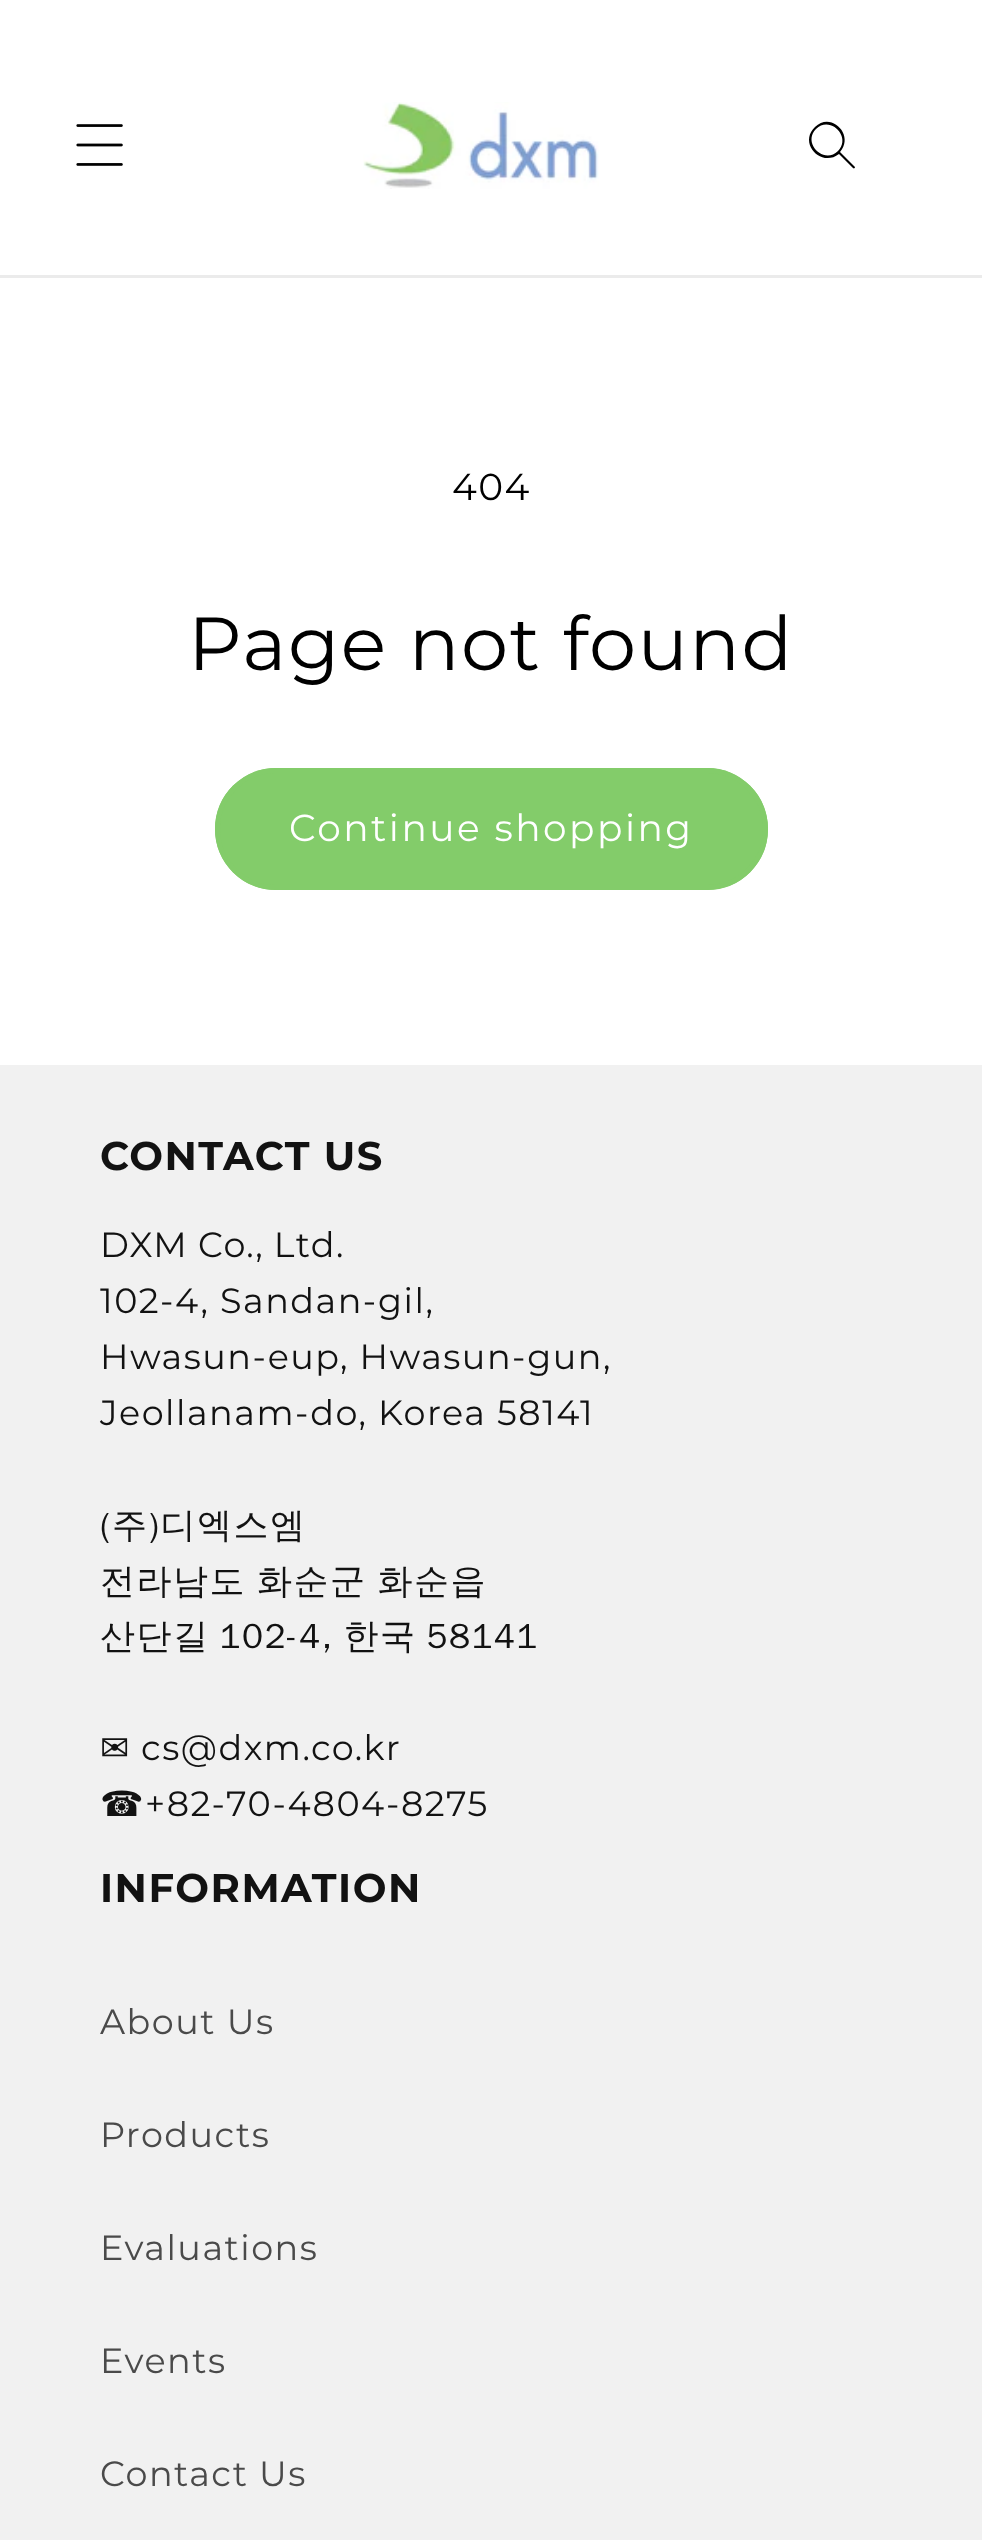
<svg xmlns="http://www.w3.org/2000/svg" width="982" height="2540">
<rect width="100%" height="100%" fill="#fff"/>
<rect y="275" width="982" height="3" fill="#ebebeb"/>
<image x="76" y="124" width="47" height="42" href="media/1.png"/>
<image x="363" y="102" width="236" height="87" href="media/2.png"/>
<path d="M838 151c-14 14-36-8-22-22c14-14 36 8 22 22m1 3c-18 14-41-11-24-27c16-16 40 8 25 25l15 15c0 1-1 2-2 1z" fill="#000" fill-rule="evenodd"/>
<text x="452" y="500" style="font-family:Montserrat;font-size:37.5px;letter-spacing:1.5px;fill:#000">404</text>
<text x="188" y="670" style="font-family:Montserrat;font-size:75px;letter-spacing:1.5px;fill:#000">Page not found</text>
<rect x="215" y="768" width="553" height="122" rx="61" fill="#83cc6a"/>
<rect x="217.5" y="770.5" width="548" height="117" rx="58.5" fill="none" stroke="#83cc6a" stroke-width="5"/>
<text x="289" y="841" style="font-family:Montserrat;font-size:37.5px;letter-spacing:2.5px;fill:#fff">Continue shopping</text>
<rect y="1065" width="982" height="1475" fill="#f1f1f1"/>
<text x="100" y="1170" style="font-family:Montserrat;font-size:40px;font-weight:bold;letter-spacing:1.5px;fill:#121212">CONTACT US</text>
<text x="100" y="1257" word-spacing="-1" style="font-family:Montserrat;font-size:35px;letter-spacing:1.5px;fill:#121212">DXM Co., Ltd.</text>
<text x="100" y="1313" style="font-family:Montserrat;font-size:35px;letter-spacing:1.5px;fill:#121212">102-4, Sandan-gil,</text>
<text x="100" y="1369" style="font-family:Montserrat;font-size:35px;letter-spacing:1.5px;fill:#121212">Hwasun-eup, Hwasun-gun,</text>
<text x="100" y="1425" style="font-family:Montserrat;font-size:35px;letter-spacing:1.5px;fill:#121212">Jeollanam-do, Korea 58141</text>
<text x="100" y="1537" style="font-family:WenQuanYi Zen Hei;font-size:35px;font-weight:500;letter-spacing:1.5px;fill:#121212">(주)디엑스엠</text>
<text x="100" y="1593" word-spacing="-1" style="font-family:WenQuanYi Zen Hei;font-size:35px;font-weight:500;letter-spacing:1.5px;fill:#121212">전라남도 화순군 화순읍</text>
<text x="100" y="1648" word-spacing="-2" style="font-family:WenQuanYi Zen Hei;font-size:35px;font-weight:500;letter-spacing:1.5px;fill:#121212">산단길 102-4, 한국 58141</text>
<text x="100" y="1760" style="font-family:DejaVu Sans;font-size:35px;letter-spacing:1.5px;fill:#121212">✉</text>
<text x="141" y="1760" style="font-family:Montserrat;font-size:35px;letter-spacing:1.5px;fill:#121212">cs@dxm.co.kr</text>
<text x="100" y="1816" style="font-family:DejaVu Sans;font-size:35px;letter-spacing:1.5px;fill:#121212">☎</text>
<text x="145" y="1816" style="font-family:Montserrat;font-size:35px;letter-spacing:1.5px;fill:#121212">+82-70-4804-8275</text>
<text x="100" y="1902" style="font-family:Montserrat;font-size:40px;font-weight:bold;letter-spacing:1.5px;fill:#121212">INFORMATION</text>
<text x="100" y="2034" style="font-family:Montserrat;font-size:35px;letter-spacing:1.5px;fill:#4a4a4a">About Us</text>
<text x="100" y="2147" style="font-family:Montserrat;font-size:35px;letter-spacing:1.5px;fill:#4a4a4a">Products</text>
<text x="100" y="2260" style="font-family:Montserrat;font-size:35px;letter-spacing:1.5px;fill:#4a4a4a">Evaluations</text>
<text x="100" y="2373" style="font-family:Montserrat;font-size:35px;letter-spacing:1.5px;fill:#4a4a4a">Events</text>
<text x="100" y="2486" style="font-family:Montserrat;font-size:35px;letter-spacing:1.5px;fill:#4a4a4a">Contact Us</text>
</svg>
